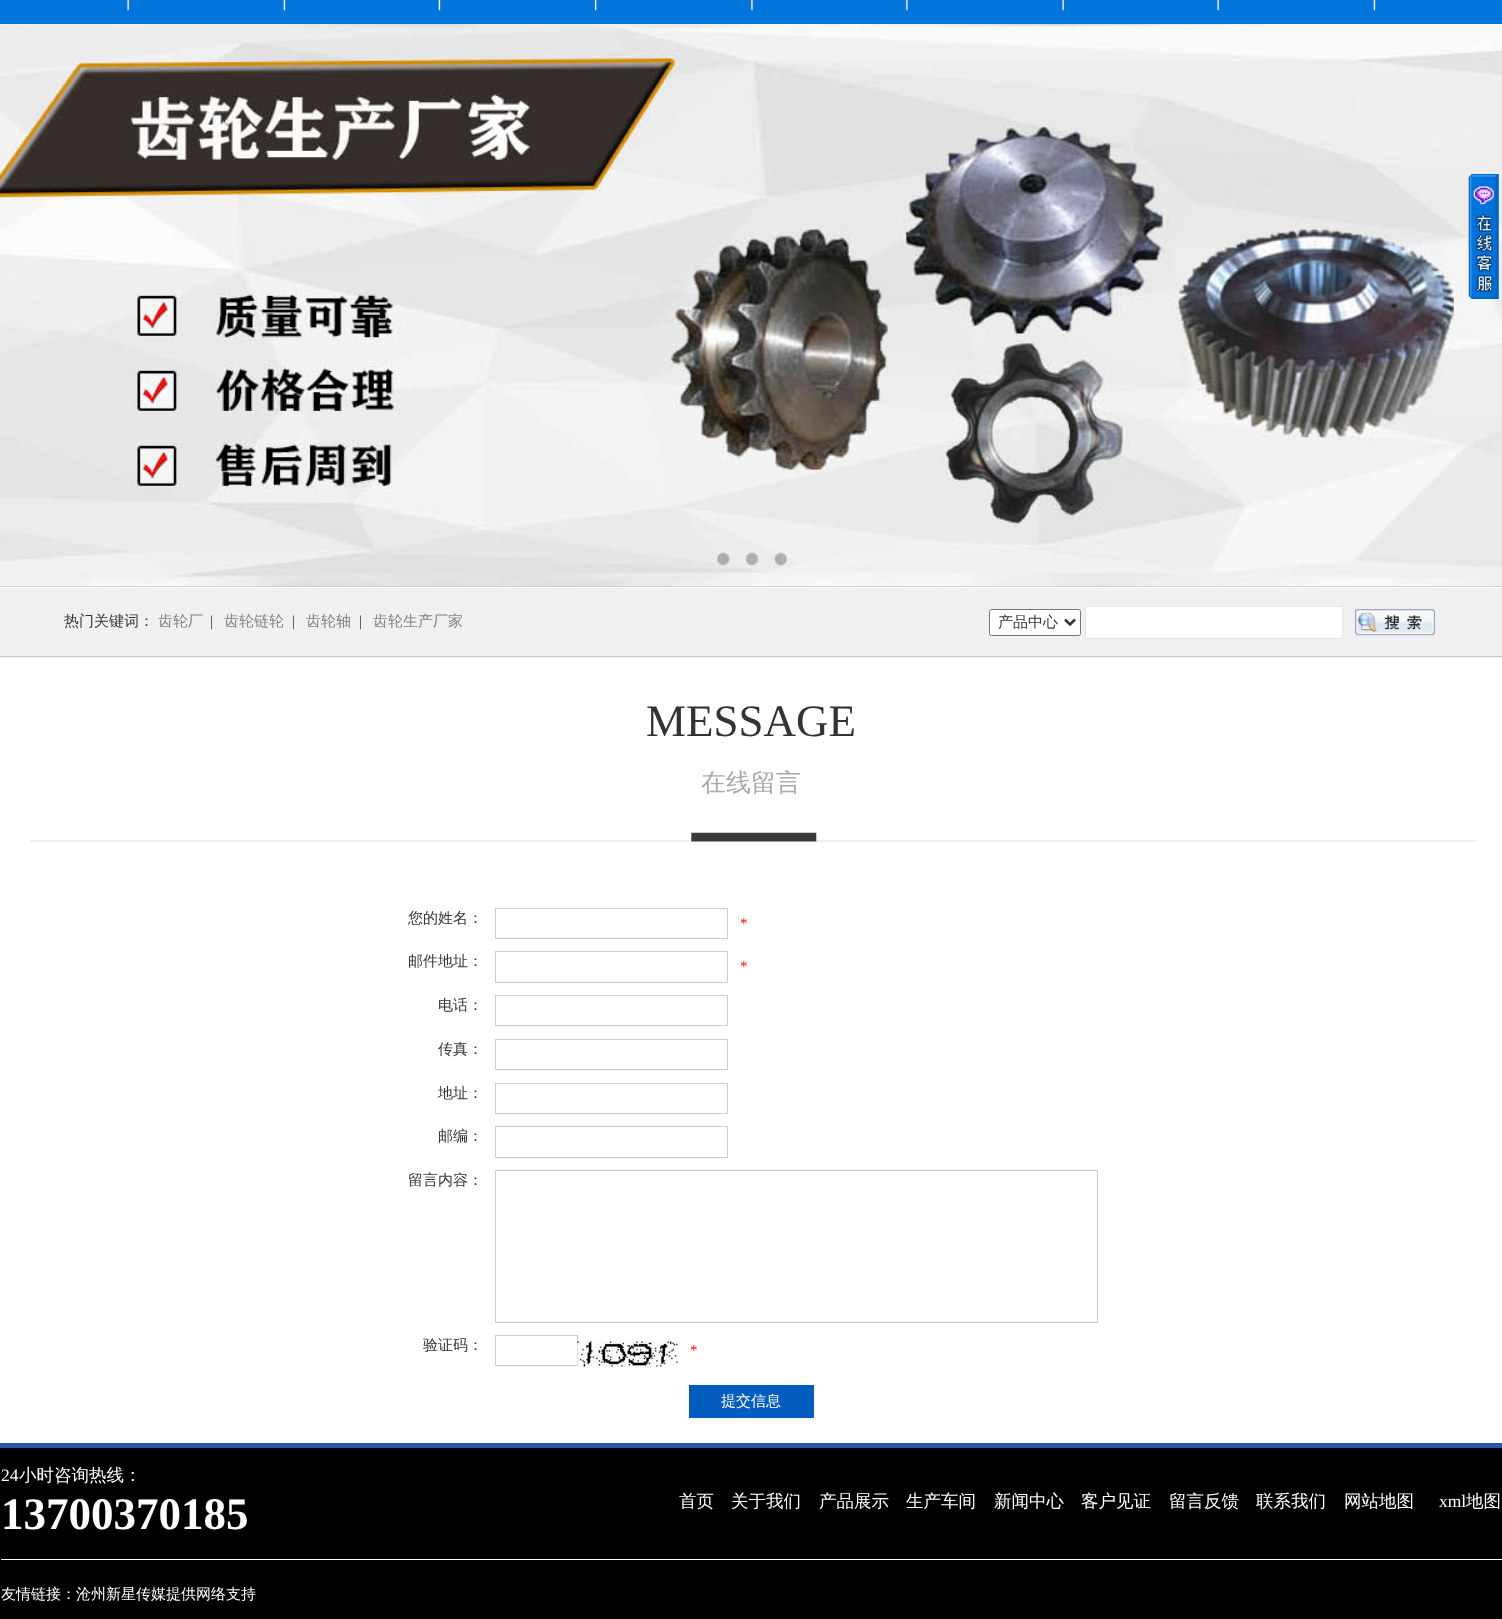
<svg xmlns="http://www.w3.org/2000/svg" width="1502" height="1619">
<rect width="100%" height="100%" fill="#fff"/>
<rect width="1502" height="24" fill="#0076db"/>
<image x="126" y="0" width="4" height="11" href="media/1.png"/>
<image x="282" y="0" width="5" height="11" href="media/2.png"/>
<image x="437" y="0" width="5" height="11" href="media/2.png"/>
<image x="593" y="0" width="5" height="11" href="media/3.png"/>
<image x="750" y="0" width="4" height="11" href="media/4.png"/>
<image x="905" y="0" width="4" height="11" href="media/5.png"/>
<image x="1061" y="0" width="4" height="11" href="media/1.png"/>
<image x="1216" y="0" width="4" height="11" href="media/1.png"/>
<image x="1372" y="0" width="5" height="11" href="media/2.png"/>
<rect y="586" width="1502" height="1" fill="#ccc"/>
<image x="0" y="24" width="1502" height="563" href="media/6.png"/>
<image x="716" y="552" width="14" height="14" href="media/7.png"/>
<image x="745" y="552" width="14" height="14" href="media/8.png"/>
<image x="774" y="552" width="14" height="14" href="media/9.png"/>
<image x="1468" y="174" width="31" height="125" href="media/10.png"/>
<rect y="588" width="1502" height="70" fill="#f0f0f0"/>
<rect y="656" width="1502" height="1" fill="#ccc"/>
<text x="64" y="626" style="font-family:WenQuanYi Zen Hei;font-size:15px;font-weight:500;fill:#333">热门关键词：</text>
<text x="158" y="626" style="font-family:WenQuanYi Zen Hei;font-size:15px;font-weight:500;fill:#808080">齿轮厂</text>
<text x="210" y="626" style="font-family:Liberation Serif;font-size:15px;fill:#333">|</text>
<text x="224" y="626" style="font-family:WenQuanYi Zen Hei;font-size:15px;font-weight:500;fill:#808080">齿轮链轮</text>
<text x="292" y="626" style="font-family:Liberation Serif;font-size:15px;fill:#333">|</text>
<text x="306" y="626" style="font-family:WenQuanYi Zen Hei;font-size:15px;font-weight:500;fill:#808080">齿轮轴</text>
<text x="359" y="626" style="font-family:Liberation Serif;font-size:15px;fill:#333">|</text>
<text x="373" y="626" style="font-family:WenQuanYi Zen Hei;font-size:15px;font-weight:500;fill:#808080">齿轮生产厂家</text>
<rect x="989.5" y="609.5" width="91" height="26" rx="2" fill="#fff" stroke="#767676"/>
<path d="M1065 619.5l5 5l5-5" fill="none" stroke="#333" stroke-width="2.5"/>
<text x="998" y="627" style="font-family:WenQuanYi Zen Hei;font-size:15px;font-weight:500;fill:#333">产品中心</text>
<rect x="1085.5" y="606.5" width="257" height="32" fill="#fff" stroke="#e6e6e6"/>
<image x="1355" y="609" width="80" height="27" href="media/11.png"/>
<text x="646" y="736" style="font-family:Liberation Serif;font-size:45px;fill:#333">MESSAGE</text>
<text x="701" y="791" style="font-family:WenQuanYi Zen Hei;font-size:25px;font-weight:500;fill:#a9a9a9">在线留言</text>
<image x="30" y="832" width="1447" height="10" href="media/12.png"/>
<text x="408" y="923" style="font-family:WenQuanYi Zen Hei;font-size:15px;font-weight:500;fill:#333">您的姓名：</text>
<rect x="495.5" y="908.5" width="232" height="30" fill="none" stroke="#ccc"/>
<text x="740" y="928" style="font-family:Liberation Serif;font-size:15px;fill:#f00">*</text>
<text x="408" y="966" style="font-family:WenQuanYi Zen Hei;font-size:15px;font-weight:500;fill:#333">邮件地址：</text>
<rect x="495.5" y="951.5" width="232" height="31" fill="none" stroke="#ccc"/>
<text x="740" y="971" style="font-family:Liberation Serif;font-size:15px;fill:#f00">*</text>
<text x="438" y="1010" style="font-family:WenQuanYi Zen Hei;font-size:15px;font-weight:500;fill:#333">电话：</text>
<rect x="495.5" y="995.5" width="232" height="30" fill="none" stroke="#ccc"/>
<text x="438" y="1054" style="font-family:WenQuanYi Zen Hei;font-size:15px;font-weight:500;fill:#333">传真：</text>
<rect x="495.5" y="1039.5" width="232" height="30" fill="none" stroke="#ccc"/>
<text x="438" y="1098" style="font-family:WenQuanYi Zen Hei;font-size:15px;font-weight:500;fill:#333">地址：</text>
<rect x="495.5" y="1083.5" width="232" height="30" fill="none" stroke="#ccc"/>
<text x="438" y="1141" style="font-family:WenQuanYi Zen Hei;font-size:15px;font-weight:500;fill:#333">邮编：</text>
<rect x="495.5" y="1126.5" width="232" height="31" fill="none" stroke="#ccc"/>
<text x="408" y="1185" style="font-family:WenQuanYi Zen Hei;font-size:15px;font-weight:500;fill:#333">留言内容：</text>
<rect x="495.5" y="1170.5" width="602" height="152" fill="none" stroke="#ccc"/>
<text x="423" y="1350" style="font-family:WenQuanYi Zen Hei;font-size:15px;font-weight:500;fill:#333">验证码：</text>
<rect x="495.5" y="1335.5" width="82" height="30" fill="none" stroke="#ccc"/>
<image x="577" y="1341" width="101" height="26" href="media/13.png"/>
<text x="690" y="1355" style="font-family:Liberation Serif;font-size:15px;fill:#f00">*</text>
<rect x="689" y="1385" width="125" height="33" fill="#025dbf"/>
<text x="721" y="1406" style="font-family:WenQuanYi Zen Hei;font-size:15px;font-weight:500;fill:#fff">提交信息</text>
<rect y="1448" width="1502" height="171" fill="#000"/>
<rect y="1443" width="1502" height="5" fill="#2a53a9"/>
<text x="1" y="1481" style="font-family:Liberation Serif;font-size:17.5px;fill:#fff">24</text>
<text x="19" y="1481" style="font-family:WenQuanYi Zen Hei;font-size:17.5px;font-weight:500;fill:#fff">小时咨询热线：</text>
<text x="1" y="1529" style="font-family:Liberation Serif;font-size:45px;font-weight:bold;fill:#fff">13700370185</text>
<text x="679" y="1507" style="font-family:WenQuanYi Zen Hei;font-size:17.5px;font-weight:500;fill:#fff">首页</text>
<text x="731" y="1507" style="font-family:WenQuanYi Zen Hei;font-size:17.5px;font-weight:500;fill:#fff">关于我们</text>
<text x="819" y="1507" style="font-family:WenQuanYi Zen Hei;font-size:17.5px;font-weight:500;fill:#fff">产品展示</text>
<text x="906" y="1507" style="font-family:WenQuanYi Zen Hei;font-size:17.5px;font-weight:500;fill:#fff">生产车间</text>
<text x="994" y="1507" style="font-family:WenQuanYi Zen Hei;font-size:17.5px;font-weight:500;fill:#fff">新闻中心</text>
<text x="1081" y="1507" style="font-family:WenQuanYi Zen Hei;font-size:17.5px;font-weight:500;fill:#fff">客户见证</text>
<text x="1169" y="1507" style="font-family:WenQuanYi Zen Hei;font-size:17.5px;font-weight:500;fill:#fff">留言反馈</text>
<text x="1256" y="1507" style="font-family:WenQuanYi Zen Hei;font-size:17.5px;font-weight:500;fill:#fff">联系我们</text>
<text x="1344" y="1507" style="font-family:WenQuanYi Zen Hei;font-size:17.5px;font-weight:500;fill:#fff">网站地图</text>
<text x="1439" y="1507" style="font-family:Liberation Serif;font-size:17.5px;fill:#fff">xml</text>
<text x="1466" y="1507" style="font-family:WenQuanYi Zen Hei;font-size:17.5px;font-weight:500;fill:#fff">地图</text>
<rect x="1" y="1559" width="1501" height="1" fill="#fff"/>
<text x="1" y="1599" style="font-family:WenQuanYi Zen Hei;font-size:15px;font-weight:500;fill:#fff">友情链接：沧州新星传媒提供网络支持</text>
</svg>
